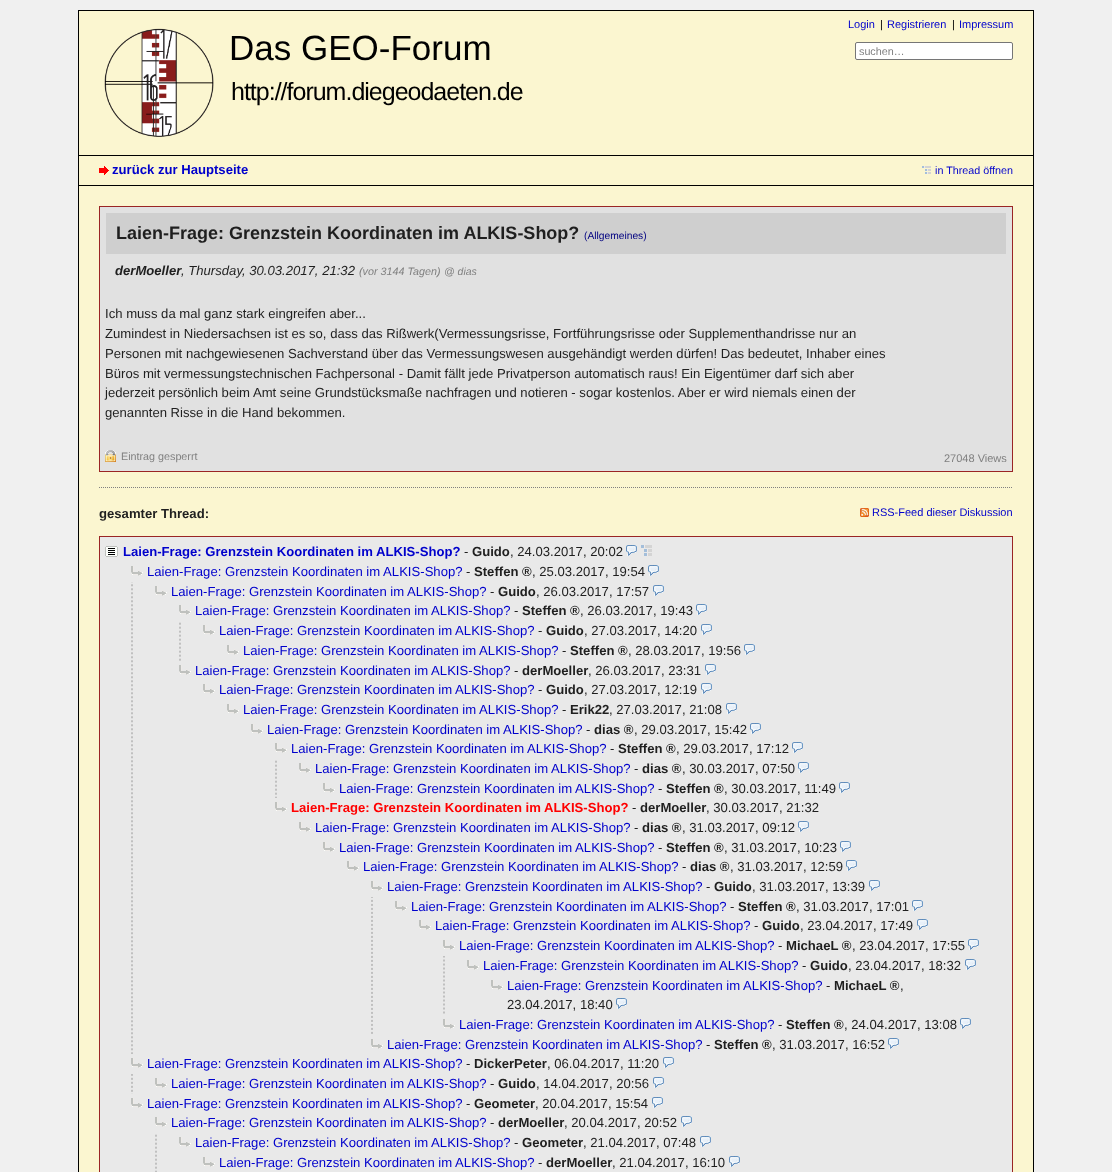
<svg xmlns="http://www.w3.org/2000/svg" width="1112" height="1172">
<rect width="100%" height="100%" fill="#f0f0f0"/>
<rect x="78.5" y="10.5" width="955" height="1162" fill="#fbf6d0" stroke="#000"/>
<image x="104" y="28" width="110" height="109" href="media/1.png"/>
<text x="229" y="60" style="font-family:Liberation Sans;font-size:35px;fill:#000">Das GEO-Forum</text>
<text x="231" y="100" style="font-family:Liberation Sans;font-size:25px;letter-spacing:-1px;fill:#000">http://forum.diegeodaeten.de</text>
<text x="848" y="28" style="font-family:Liberation Sans;font-size:11px;fill:#00c">Login</text>
<text x="880" y="28" style="font-family:Liberation Sans;font-size:11px;fill:#000">|</text>
<text x="887" y="28" style="font-family:Liberation Sans;font-size:11px;fill:#00c">Registrieren</text>
<text x="952" y="28" style="font-family:Liberation Sans;font-size:11px;fill:#000">|</text>
<text x="959" y="28" style="font-family:Liberation Sans;font-size:11px;fill:#00c">Impressum</text>
<rect x="855.5" y="42.5" width="157" height="17" rx="1.5" fill="#fff" stroke="#767676"/>
<text x="859" y="55" style="font-family:Liberation Sans;font-size:10.75px;fill:#808080">suchen…</text>
<rect x="79" y="155" width="954" height="1" fill="#000"/>
<rect x="79" y="185" width="954" height="1" fill="#000"/>
<image x="99" y="166" width="10" height="9" href="media/2.png"/>
<text x="112" y="174" style="font-family:Liberation Sans;font-size:13.12px;font-weight:bold;fill:#00c">zurück zur Hauptseite</text>
<image x="922" y="166" width="9" height="8" href="media/3.png"/>
<text x="935" y="174" style="font-family:Liberation Sans;font-size:10.75px;fill:#00c">in Thread öffnen</text>
<rect x="99.5" y="206.5" width="913" height="265" fill="#e1e1e1" stroke="#9a2525"/>
<rect x="106" y="213" width="900" height="41" fill="#cfcfcf"/>
<text x="116" y="239" style="font-family:Liberation Sans;font-size:18px;font-weight:bold;fill:#1f1f1f">Laien-Frage: Grenzstein Koordinaten im ALKIS-Shop?</text>
<text x="584" y="239" style="font-family:Liberation Sans;font-size:10.25px;fill:#000080">(Allgemeines)</text>
<text x="115" y="275" style="font-family:Liberation Sans;font-size:13.12px;font-weight:bold;font-style:italic;fill:#1f1f1f">derMoeller</text>
<text x="181" y="275" style="font-family:Liberation Sans;font-size:13.12px;font-style:italic;fill:#1f1f1f">, Thursday, 30.03.2017, 21:32</text>
<text x="359" y="275" style="font-family:Liberation Sans;font-size:10.75px;font-style:italic;fill:#808080">(vor 3144 Tagen)</text>
<text x="444" y="275" style="font-family:Liberation Sans;font-size:10.5px;font-style:italic;fill:#808080">@ dias</text>
<text x="105" y="318" style="font-family:Liberation Sans;font-size:13.12px;fill:#1f1f1f">Ich muss da mal ganz stark eingreifen aber...</text>
<text x="105" y="338" style="font-family:Liberation Sans;font-size:13.12px;fill:#1f1f1f">Zumindest in Niedersachsen ist es so, dass das Rißwerk(Vermessungsrisse, Fortführungsrisse oder Supplementhandrisse nur an</text>
<text x="105" y="358" style="font-family:Liberation Sans;font-size:13.12px;fill:#1f1f1f">Personen mit nachgewiesenen Sachverstand über das Vermessungswesen ausgehändigt werden dürfen! Das bedeutet, Inhaber eines</text>
<text x="105" y="378" style="font-family:Liberation Sans;font-size:13.12px;fill:#1f1f1f">Büros mit vermessungstechnischen Fachpersonal - Damit fällt jede Privatperson automatisch raus! Ein Eigentümer darf sich aber</text>
<text x="105" y="397" style="font-family:Liberation Sans;font-size:13.12px;fill:#1f1f1f">jederzeit persönlich beim Amt seine Grundstücksmaße nachfragen und notieren - sogar kostenlos. Aber er wird niemals einen der</text>
<text x="105" y="417" style="font-family:Liberation Sans;font-size:13.12px;fill:#1f1f1f">genannten Risse in die Hand bekommen.</text>
<image x="105" y="450" width="11" height="12" href="media/4.png"/>
<text x="121" y="460" style="font-family:Liberation Sans;font-size:10.75px;fill:#808080">Eintrag gesperrt</text>
<text x="944" y="462" style="font-family:Liberation Sans;font-size:11px;fill:#808080">27048 Views</text>
<path d="M99 487.5h914" fill="none" stroke="#808080" stroke-dasharray="1 1"/>
<text x="99" y="518" style="font-family:Liberation Sans;font-size:13.12px;font-weight:bold;fill:#1f1f1f">gesamter Thread:</text>
<image x="860" y="508" width="9" height="9" href="media/5.png"/>
<text x="872" y="516" style="font-family:Liberation Sans;font-size:11px;fill:#00c">RSS-Feed dieser Diskussion</text>
<rect x="99.5" y="536.5" width="913" height="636" fill="#e9e9e9" stroke="#9a2525"/>
<image x="105" y="546" width="13" height="11" href="media/6.png"/>
<text x="123" y="556" style="font-family:Liberation Sans;font-size:13.12px;font-weight:bold;fill:#00c">Laien-Frage: Grenzstein Koordinaten im ALKIS-Shop?</text>
<text x="464" y="556" style="font-family:Liberation Sans;font-size:13.12px;fill:#1f1f1f">-</text>
<text x="472" y="556" style="font-family:Liberation Sans;font-size:13.12px;font-weight:bold;fill:#1f1f1f">Guido</text>
<text x="510" y="556" style="font-family:Liberation Sans;font-size:13.12px;fill:#1f1f1f">, 24.03.2017, 20:02</text>
<image x="626" y="545" width="11" height="11" href="media/7.png"/>
<image x="641" y="545" width="11" height="11" href="media/8.png"/>
<image x="131" y="566" width="12" height="10" href="media/9.png"/>
<text x="147" y="576" style="font-family:Liberation Sans;font-size:13.12px;fill:#00c">Laien-Frage: Grenzstein Koordinaten im ALKIS-Shop?</text>
<text x="466" y="576" style="font-family:Liberation Sans;font-size:13.12px;fill:#1f1f1f">-</text>
<text x="474" y="576" style="font-family:Liberation Sans;font-size:13.12px;font-weight:bold;fill:#1f1f1f">Steffen ®</text>
<text x="532" y="576" style="font-family:Liberation Sans;font-size:13.12px;fill:#1f1f1f">, 25.03.2017, 19:54</text>
<image x="648" y="565" width="11" height="11" href="media/7.png"/>
<image x="131" y="582" width="2" height="472" href="media/10.png"/>
<image x="155" y="586" width="12" height="10" href="media/9.png"/>
<text x="171" y="596" style="font-family:Liberation Sans;font-size:13.12px;fill:#00c">Laien-Frage: Grenzstein Koordinaten im ALKIS-Shop?</text>
<text x="490" y="596" style="font-family:Liberation Sans;font-size:13.12px;fill:#1f1f1f">-</text>
<text x="498" y="596" style="font-family:Liberation Sans;font-size:13.12px;font-weight:bold;fill:#1f1f1f">Guido</text>
<text x="536" y="596" style="font-family:Liberation Sans;font-size:13.12px;fill:#1f1f1f">, 26.03.2017, 17:57</text>
<image x="653" y="585" width="11" height="11" href="media/7.png"/>
<image x="179" y="605" width="12" height="10" href="media/9.png"/>
<text x="195" y="615" style="font-family:Liberation Sans;font-size:13.12px;fill:#00c">Laien-Frage: Grenzstein Koordinaten im ALKIS-Shop?</text>
<text x="514" y="615" style="font-family:Liberation Sans;font-size:13.12px;fill:#1f1f1f">-</text>
<text x="522" y="615" style="font-family:Liberation Sans;font-size:13.12px;font-weight:bold;fill:#1f1f1f">Steffen ®</text>
<text x="580" y="615" style="font-family:Liberation Sans;font-size:13.12px;fill:#1f1f1f">, 26.03.2017, 19:43</text>
<image x="696" y="604" width="11" height="11" href="media/7.png"/>
<image x="179" y="622" width="2" height="39" href="media/11.png"/>
<image x="203" y="625" width="12" height="10" href="media/9.png"/>
<text x="219" y="635" style="font-family:Liberation Sans;font-size:13.12px;fill:#00c">Laien-Frage: Grenzstein Koordinaten im ALKIS-Shop?</text>
<text x="538" y="635" style="font-family:Liberation Sans;font-size:13.12px;fill:#1f1f1f">-</text>
<text x="546" y="635" style="font-family:Liberation Sans;font-size:13.12px;font-weight:bold;fill:#1f1f1f">Guido</text>
<text x="584" y="635" style="font-family:Liberation Sans;font-size:13.12px;fill:#1f1f1f">, 27.03.2017, 14:20</text>
<image x="701" y="624" width="11" height="11" href="media/7.png"/>
<image x="227" y="645" width="12" height="10" href="media/9.png"/>
<text x="243" y="655" style="font-family:Liberation Sans;font-size:13.12px;fill:#00c">Laien-Frage: Grenzstein Koordinaten im ALKIS-Shop?</text>
<text x="562" y="655" style="font-family:Liberation Sans;font-size:13.12px;fill:#1f1f1f">-</text>
<text x="570" y="655" style="font-family:Liberation Sans;font-size:13.12px;font-weight:bold;fill:#1f1f1f">Steffen ®</text>
<text x="628" y="655" style="font-family:Liberation Sans;font-size:13.12px;fill:#1f1f1f">, 28.03.2017, 19:56</text>
<image x="744" y="644" width="11" height="11" href="media/7.png"/>
<image x="179" y="665" width="12" height="10" href="media/9.png"/>
<text x="195" y="675" style="font-family:Liberation Sans;font-size:13.12px;fill:#00c">Laien-Frage: Grenzstein Koordinaten im ALKIS-Shop?</text>
<text x="514" y="675" style="font-family:Liberation Sans;font-size:13.12px;fill:#1f1f1f">-</text>
<text x="522" y="675" style="font-family:Liberation Sans;font-size:13.12px;font-weight:bold;fill:#1f1f1f">derMoeller</text>
<text x="588" y="675" style="font-family:Liberation Sans;font-size:13.12px;fill:#1f1f1f">, 26.03.2017, 23:31</text>
<image x="705" y="664" width="11" height="11" href="media/7.png"/>
<image x="203" y="684" width="12" height="10" href="media/9.png"/>
<text x="219" y="694" style="font-family:Liberation Sans;font-size:13.12px;fill:#00c">Laien-Frage: Grenzstein Koordinaten im ALKIS-Shop?</text>
<text x="538" y="694" style="font-family:Liberation Sans;font-size:13.12px;fill:#1f1f1f">-</text>
<text x="546" y="694" style="font-family:Liberation Sans;font-size:13.12px;font-weight:bold;fill:#1f1f1f">Guido</text>
<text x="584" y="694" style="font-family:Liberation Sans;font-size:13.12px;fill:#1f1f1f">, 27.03.2017, 12:19</text>
<image x="701" y="683" width="11" height="11" href="media/7.png"/>
<image x="227" y="704" width="12" height="10" href="media/9.png"/>
<text x="243" y="714" style="font-family:Liberation Sans;font-size:13.12px;fill:#00c">Laien-Frage: Grenzstein Koordinaten im ALKIS-Shop?</text>
<text x="562" y="714" style="font-family:Liberation Sans;font-size:13.12px;fill:#1f1f1f">-</text>
<text x="570" y="714" style="font-family:Liberation Sans;font-size:13.12px;font-weight:bold;fill:#1f1f1f">Erik22</text>
<text x="609" y="714" style="font-family:Liberation Sans;font-size:13.12px;fill:#1f1f1f">, 27.03.2017, 21:08</text>
<image x="726" y="703" width="11" height="11" href="media/7.png"/>
<image x="251" y="724" width="12" height="10" href="media/9.png"/>
<text x="267" y="734" style="font-family:Liberation Sans;font-size:13.12px;fill:#00c">Laien-Frage: Grenzstein Koordinaten im ALKIS-Shop?</text>
<text x="586" y="734" style="font-family:Liberation Sans;font-size:13.12px;fill:#1f1f1f">-</text>
<text x="594" y="734" style="font-family:Liberation Sans;font-size:13.12px;font-weight:bold;fill:#1f1f1f">dias ®</text>
<text x="634" y="734" style="font-family:Liberation Sans;font-size:13.12px;fill:#1f1f1f">, 29.03.2017, 15:42</text>
<image x="750" y="723" width="11" height="11" href="media/7.png"/>
<image x="275" y="743" width="12" height="10" href="media/9.png"/>
<text x="291" y="753" style="font-family:Liberation Sans;font-size:13.12px;fill:#00c">Laien-Frage: Grenzstein Koordinaten im ALKIS-Shop?</text>
<text x="610" y="753" style="font-family:Liberation Sans;font-size:13.12px;fill:#1f1f1f">-</text>
<text x="618" y="753" style="font-family:Liberation Sans;font-size:13.12px;font-weight:bold;fill:#1f1f1f">Steffen ®</text>
<text x="676" y="753" style="font-family:Liberation Sans;font-size:13.12px;fill:#1f1f1f">, 29.03.2017, 17:12</text>
<image x="792" y="742" width="11" height="11" href="media/7.png"/>
<image x="275" y="760" width="2" height="38" href="media/12.png"/>
<image x="299" y="763" width="12" height="10" href="media/9.png"/>
<text x="315" y="773" style="font-family:Liberation Sans;font-size:13.12px;fill:#00c">Laien-Frage: Grenzstein Koordinaten im ALKIS-Shop?</text>
<text x="634" y="773" style="font-family:Liberation Sans;font-size:13.12px;fill:#1f1f1f">-</text>
<text x="642" y="773" style="font-family:Liberation Sans;font-size:13.12px;font-weight:bold;fill:#1f1f1f">dias ®</text>
<text x="682" y="773" style="font-family:Liberation Sans;font-size:13.12px;fill:#1f1f1f">, 30.03.2017, 07:50</text>
<image x="798" y="762" width="11" height="11" href="media/7.png"/>
<image x="323" y="783" width="12" height="10" href="media/9.png"/>
<text x="339" y="793" style="font-family:Liberation Sans;font-size:13.12px;fill:#00c">Laien-Frage: Grenzstein Koordinaten im ALKIS-Shop?</text>
<text x="658" y="793" style="font-family:Liberation Sans;font-size:13.12px;fill:#1f1f1f">-</text>
<text x="666" y="793" style="font-family:Liberation Sans;font-size:13.12px;font-weight:bold;fill:#1f1f1f">Steffen ®</text>
<text x="724" y="793" style="font-family:Liberation Sans;font-size:13.12px;fill:#1f1f1f">, 30.03.2017, 11:49</text>
<image x="839" y="782" width="11" height="11" href="media/7.png"/>
<image x="275" y="802" width="12" height="10" href="media/9.png"/>
<text x="291" y="812" style="font-family:Liberation Sans;font-size:13.12px;font-weight:bold;fill:#f00">Laien-Frage: Grenzstein Koordinaten im ALKIS-Shop?</text>
<text x="632" y="812" style="font-family:Liberation Sans;font-size:13.12px;fill:#1f1f1f">-</text>
<text x="640" y="812" style="font-family:Liberation Sans;font-size:13.12px;font-weight:bold;fill:#1f1f1f">derMoeller</text>
<text x="706" y="812" style="font-family:Liberation Sans;font-size:13.12px;fill:#1f1f1f">, 30.03.2017, 21:32</text>
<image x="299" y="822" width="12" height="10" href="media/9.png"/>
<text x="315" y="832" style="font-family:Liberation Sans;font-size:13.12px;fill:#00c">Laien-Frage: Grenzstein Koordinaten im ALKIS-Shop?</text>
<text x="634" y="832" style="font-family:Liberation Sans;font-size:13.12px;fill:#1f1f1f">-</text>
<text x="642" y="832" style="font-family:Liberation Sans;font-size:13.12px;font-weight:bold;fill:#1f1f1f">dias ®</text>
<text x="682" y="832" style="font-family:Liberation Sans;font-size:13.12px;fill:#1f1f1f">, 31.03.2017, 09:12</text>
<image x="798" y="821" width="11" height="11" href="media/7.png"/>
<image x="323" y="842" width="12" height="10" href="media/9.png"/>
<text x="339" y="852" style="font-family:Liberation Sans;font-size:13.12px;fill:#00c">Laien-Frage: Grenzstein Koordinaten im ALKIS-Shop?</text>
<text x="658" y="852" style="font-family:Liberation Sans;font-size:13.12px;fill:#1f1f1f">-</text>
<text x="666" y="852" style="font-family:Liberation Sans;font-size:13.12px;font-weight:bold;fill:#1f1f1f">Steffen ®</text>
<text x="724" y="852" style="font-family:Liberation Sans;font-size:13.12px;fill:#1f1f1f">, 31.03.2017, 10:23</text>
<image x="840" y="841" width="11" height="11" href="media/7.png"/>
<image x="347" y="861" width="12" height="10" href="media/9.png"/>
<text x="363" y="871" style="font-family:Liberation Sans;font-size:13.12px;fill:#00c">Laien-Frage: Grenzstein Koordinaten im ALKIS-Shop?</text>
<text x="682" y="871" style="font-family:Liberation Sans;font-size:13.12px;fill:#1f1f1f">-</text>
<text x="690" y="871" style="font-family:Liberation Sans;font-size:13.12px;font-weight:bold;fill:#1f1f1f">dias ®</text>
<text x="730" y="871" style="font-family:Liberation Sans;font-size:13.12px;fill:#1f1f1f">, 31.03.2017, 12:59</text>
<image x="846" y="860" width="11" height="11" href="media/7.png"/>
<image x="371" y="881" width="12" height="10" href="media/9.png"/>
<text x="387" y="891" style="font-family:Liberation Sans;font-size:13.12px;fill:#00c">Laien-Frage: Grenzstein Koordinaten im ALKIS-Shop?</text>
<text x="706" y="891" style="font-family:Liberation Sans;font-size:13.12px;fill:#1f1f1f">-</text>
<text x="714" y="891" style="font-family:Liberation Sans;font-size:13.12px;font-weight:bold;fill:#1f1f1f">Guido</text>
<text x="752" y="891" style="font-family:Liberation Sans;font-size:13.12px;fill:#1f1f1f">, 31.03.2017, 13:39</text>
<image x="869" y="880" width="11" height="11" href="media/7.png"/>
<image x="371" y="897" width="2" height="137" href="media/13.png"/>
<image x="395" y="901" width="12" height="10" href="media/9.png"/>
<text x="411" y="911" style="font-family:Liberation Sans;font-size:13.12px;fill:#00c">Laien-Frage: Grenzstein Koordinaten im ALKIS-Shop?</text>
<text x="730" y="911" style="font-family:Liberation Sans;font-size:13.12px;fill:#1f1f1f">-</text>
<text x="738" y="911" style="font-family:Liberation Sans;font-size:13.12px;font-weight:bold;fill:#1f1f1f">Steffen ®</text>
<text x="796" y="911" style="font-family:Liberation Sans;font-size:13.12px;fill:#1f1f1f">, 31.03.2017, 17:01</text>
<image x="912" y="900" width="11" height="11" href="media/7.png"/>
<image x="419" y="920" width="12" height="10" href="media/9.png"/>
<text x="435" y="930" style="font-family:Liberation Sans;font-size:13.12px;fill:#00c">Laien-Frage: Grenzstein Koordinaten im ALKIS-Shop?</text>
<text x="754" y="930" style="font-family:Liberation Sans;font-size:13.12px;fill:#1f1f1f">-</text>
<text x="762" y="930" style="font-family:Liberation Sans;font-size:13.12px;font-weight:bold;fill:#1f1f1f">Guido</text>
<text x="800" y="930" style="font-family:Liberation Sans;font-size:13.12px;fill:#1f1f1f">, 23.04.2017, 17:49</text>
<image x="917" y="919" width="11" height="11" href="media/7.png"/>
<image x="443" y="940" width="12" height="10" href="media/9.png"/>
<text x="459" y="950" style="font-family:Liberation Sans;font-size:13.12px;fill:#00c">Laien-Frage: Grenzstein Koordinaten im ALKIS-Shop?</text>
<text x="778" y="950" style="font-family:Liberation Sans;font-size:13.12px;fill:#1f1f1f">-</text>
<text x="786" y="950" style="font-family:Liberation Sans;font-size:13.12px;font-weight:bold;fill:#1f1f1f">MichaeL ®</text>
<text x="852" y="950" style="font-family:Liberation Sans;font-size:13.12px;fill:#1f1f1f">, 23.04.2017, 17:55</text>
<image x="968" y="939" width="11" height="11" href="media/7.png"/>
<image x="443" y="956" width="2" height="58" href="media/14.png"/>
<image x="467" y="960" width="12" height="10" href="media/9.png"/>
<text x="483" y="970" style="font-family:Liberation Sans;font-size:13.12px;fill:#00c">Laien-Frage: Grenzstein Koordinaten im ALKIS-Shop?</text>
<text x="802" y="970" style="font-family:Liberation Sans;font-size:13.12px;fill:#1f1f1f">-</text>
<text x="810" y="970" style="font-family:Liberation Sans;font-size:13.12px;font-weight:bold;fill:#1f1f1f">Guido</text>
<text x="848" y="970" style="font-family:Liberation Sans;font-size:13.12px;fill:#1f1f1f">, 23.04.2017, 18:32</text>
<image x="965" y="959" width="11" height="11" href="media/7.png"/>
<image x="491" y="980" width="12" height="10" href="media/9.png"/>
<text x="507" y="990" style="font-family:Liberation Sans;font-size:13.12px;fill:#00c">Laien-Frage: Grenzstein Koordinaten im ALKIS-Shop?</text>
<text x="826" y="990" style="font-family:Liberation Sans;font-size:13.12px;fill:#1f1f1f">-</text>
<text x="834" y="990" style="font-family:Liberation Sans;font-size:13.12px;font-weight:bold;fill:#1f1f1f">MichaeL ®</text>
<text x="900" y="990" style="font-family:Liberation Sans;font-size:13.12px;fill:#1f1f1f">,</text>
<text x="507" y="1009" style="font-family:Liberation Sans;font-size:13.12px;fill:#1f1f1f">23.04.2017, 18:40</text>
<image x="616" y="998" width="11" height="11" href="media/7.png"/>
<image x="443" y="1019" width="12" height="10" href="media/9.png"/>
<text x="459" y="1029" style="font-family:Liberation Sans;font-size:13.12px;fill:#00c">Laien-Frage: Grenzstein Koordinaten im ALKIS-Shop?</text>
<text x="778" y="1029" style="font-family:Liberation Sans;font-size:13.12px;fill:#1f1f1f">-</text>
<text x="786" y="1029" style="font-family:Liberation Sans;font-size:13.12px;font-weight:bold;fill:#1f1f1f">Steffen ®</text>
<text x="844" y="1029" style="font-family:Liberation Sans;font-size:13.12px;fill:#1f1f1f">, 24.04.2017, 13:08</text>
<image x="960" y="1018" width="11" height="11" href="media/7.png"/>
<image x="371" y="1039" width="12" height="10" href="media/9.png"/>
<text x="387" y="1049" style="font-family:Liberation Sans;font-size:13.12px;fill:#00c">Laien-Frage: Grenzstein Koordinaten im ALKIS-Shop?</text>
<text x="706" y="1049" style="font-family:Liberation Sans;font-size:13.12px;fill:#1f1f1f">-</text>
<text x="714" y="1049" style="font-family:Liberation Sans;font-size:13.12px;font-weight:bold;fill:#1f1f1f">Steffen ®</text>
<text x="772" y="1049" style="font-family:Liberation Sans;font-size:13.12px;fill:#1f1f1f">, 31.03.2017, 16:52</text>
<image x="888" y="1038" width="11" height="11" href="media/7.png"/>
<image x="131" y="1058" width="12" height="10" href="media/9.png"/>
<text x="147" y="1068" style="font-family:Liberation Sans;font-size:13.12px;fill:#00c">Laien-Frage: Grenzstein Koordinaten im ALKIS-Shop?</text>
<text x="466" y="1068" style="font-family:Liberation Sans;font-size:13.12px;fill:#1f1f1f">-</text>
<text x="474" y="1068" style="font-family:Liberation Sans;font-size:13.12px;font-weight:bold;fill:#1f1f1f">DickerPeter</text>
<text x="547" y="1068" style="font-family:Liberation Sans;font-size:13.12px;fill:#1f1f1f">, 06.04.2017, 11:20</text>
<image x="663" y="1057" width="11" height="11" href="media/7.png"/>
<image x="131" y="1074" width="2" height="20" href="media/15.png"/>
<image x="155" y="1078" width="12" height="10" href="media/9.png"/>
<text x="171" y="1088" style="font-family:Liberation Sans;font-size:13.12px;fill:#00c">Laien-Frage: Grenzstein Koordinaten im ALKIS-Shop?</text>
<text x="490" y="1088" style="font-family:Liberation Sans;font-size:13.12px;fill:#1f1f1f">-</text>
<text x="498" y="1088" style="font-family:Liberation Sans;font-size:13.12px;font-weight:bold;fill:#1f1f1f">Guido</text>
<text x="536" y="1088" style="font-family:Liberation Sans;font-size:13.12px;fill:#1f1f1f">, 14.04.2017, 20:56</text>
<image x="653" y="1077" width="11" height="11" href="media/7.png"/>
<image x="131" y="1098" width="12" height="10" href="media/9.png"/>
<text x="147" y="1108" style="font-family:Liberation Sans;font-size:13.12px;fill:#00c">Laien-Frage: Grenzstein Koordinaten im ALKIS-Shop?</text>
<text x="466" y="1108" style="font-family:Liberation Sans;font-size:13.12px;fill:#1f1f1f">-</text>
<text x="474" y="1108" style="font-family:Liberation Sans;font-size:13.12px;font-weight:bold;fill:#1f1f1f">Geometer</text>
<text x="535" y="1108" style="font-family:Liberation Sans;font-size:13.12px;fill:#1f1f1f">, 20.04.2017, 15:54</text>
<image x="652" y="1097" width="11" height="11" href="media/7.png"/>
<image x="155" y="1117" width="12" height="10" href="media/9.png"/>
<text x="171" y="1127" style="font-family:Liberation Sans;font-size:13.12px;fill:#00c">Laien-Frage: Grenzstein Koordinaten im ALKIS-Shop?</text>
<text x="490" y="1127" style="font-family:Liberation Sans;font-size:13.12px;fill:#1f1f1f">-</text>
<text x="498" y="1127" style="font-family:Liberation Sans;font-size:13.12px;font-weight:bold;fill:#1f1f1f">derMoeller</text>
<text x="564" y="1127" style="font-family:Liberation Sans;font-size:13.12px;fill:#1f1f1f">, 20.04.2017, 20:52</text>
<image x="681" y="1116" width="11" height="11" href="media/7.png"/>
<image x="155" y="1134" width="2" height="38" href="media/12.png"/>
<image x="179" y="1137" width="12" height="10" href="media/9.png"/>
<text x="195" y="1147" style="font-family:Liberation Sans;font-size:13.12px;fill:#00c">Laien-Frage: Grenzstein Koordinaten im ALKIS-Shop?</text>
<text x="514" y="1147" style="font-family:Liberation Sans;font-size:13.12px;fill:#1f1f1f">-</text>
<text x="522" y="1147" style="font-family:Liberation Sans;font-size:13.12px;font-weight:bold;fill:#1f1f1f">Geometer</text>
<text x="583" y="1147" style="font-family:Liberation Sans;font-size:13.12px;fill:#1f1f1f">, 21.04.2017, 07:48</text>
<image x="700" y="1136" width="11" height="11" href="media/7.png"/>
<image x="203" y="1157" width="12" height="10" href="media/9.png"/>
<text x="219" y="1167" style="font-family:Liberation Sans;font-size:13.12px;fill:#00c">Laien-Frage: Grenzstein Koordinaten im ALKIS-Shop?</text>
<text x="538" y="1167" style="font-family:Liberation Sans;font-size:13.12px;fill:#1f1f1f">-</text>
<text x="546" y="1167" style="font-family:Liberation Sans;font-size:13.12px;font-weight:bold;fill:#1f1f1f">derMoeller</text>
<text x="612" y="1167" style="font-family:Liberation Sans;font-size:13.12px;fill:#1f1f1f">, 21.04.2017, 16:10</text>
<image x="729" y="1156" width="11" height="11" href="media/7.png"/>
</svg>
